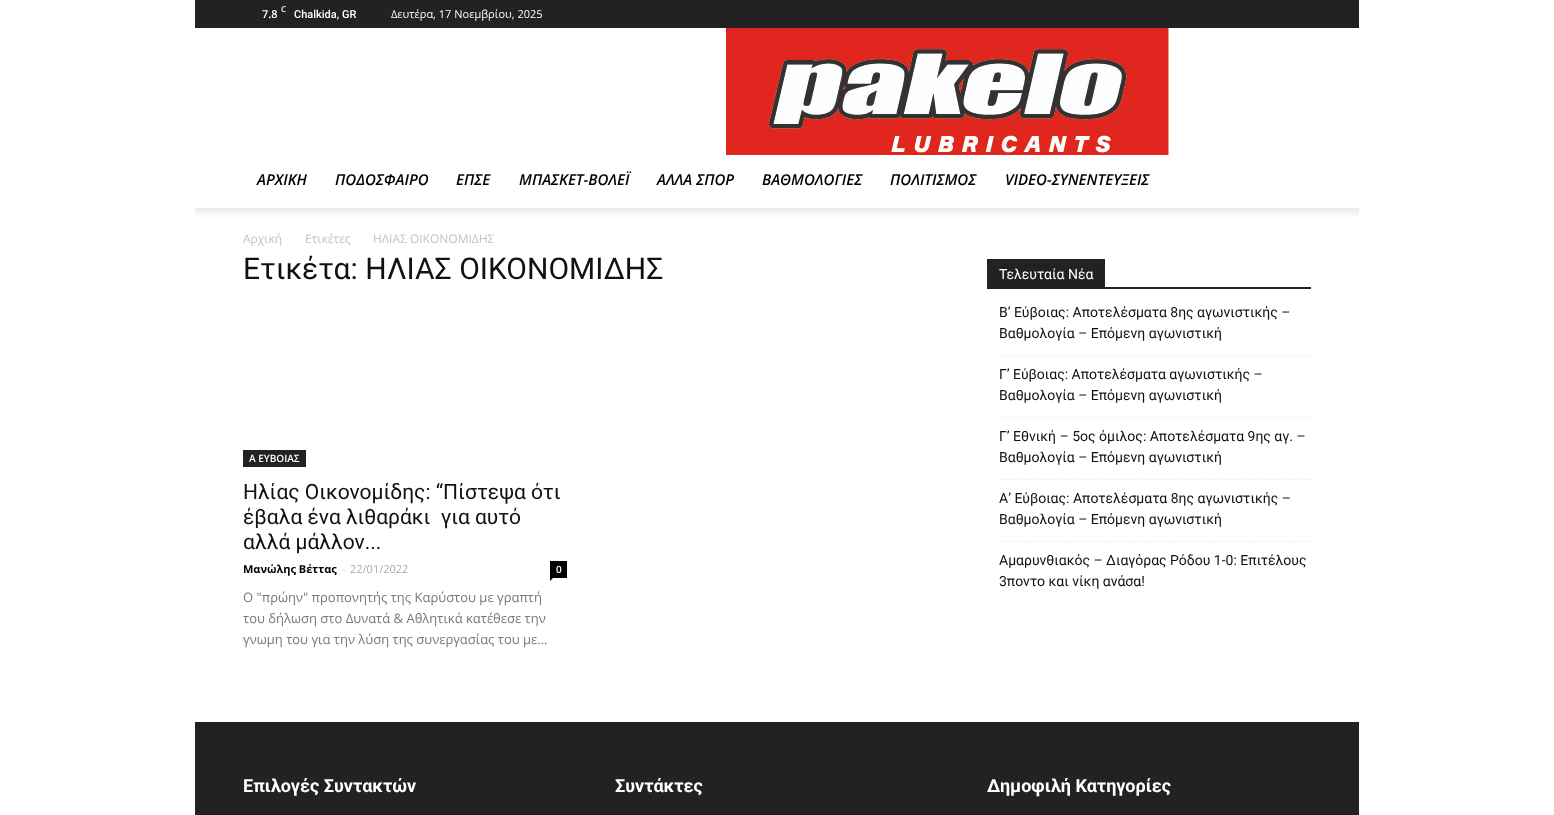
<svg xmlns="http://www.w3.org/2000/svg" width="1554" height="815">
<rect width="100%" height="100%" fill="#fff"/>
<rect x="195" width="1164" height="28" fill="#222"/>
<text x="262" y="18" style="font-family:Open Sans;font-size:11px;font-weight:600;fill:#fff">7.8</text>
<text x="281" y="12" style="font-family:Open Sans;font-size:8px;font-weight:600;fill:#fff">C</text>
<text x="294" y="18" style="font-family:Roboto;font-size:11px;font-weight:500;fill:#fff">Chalkida, GR</text>
<text x="391" y="18" style="font-family:Open Sans;font-size:11px;fill:#fff">Δευτέρα, 17 Νοεμβρίου, 2025</text>
<image x="726" y="28" width="443" height="127" href="media/1.png"/>
<text x="257" y="185" style="font-family:Open Sans;font-size:15px;font-weight:600;font-style:italic;fill:#000">ΑΡΧΙΚΗ</text>
<text x="335" y="185" style="font-family:Open Sans;font-size:15px;font-weight:600;font-style:italic;fill:#000">ΠΟΔΟΣΦΑΙΡΟ</text>
<text x="456" y="185" style="font-family:Open Sans;font-size:15px;font-weight:600;font-style:italic;fill:#000">ΕΠΣΕ</text>
<text x="519" y="185" style="font-family:Open Sans;font-size:15px;font-weight:600;font-style:italic;fill:#000">ΜΠΑΣΚΕΤ-ΒΟΛΕΪ</text>
<text x="657" y="185" style="font-family:Open Sans;font-size:15px;font-weight:600;font-style:italic;fill:#000">ΑΛΛΑ ΣΠΟΡ</text>
<text x="762" y="185" style="font-family:Open Sans;font-size:15px;font-weight:600;font-style:italic;fill:#000">ΒΑΘΜΟΛΟΓΙΕΣ</text>
<text x="890" y="185" style="font-family:Open Sans;font-size:15px;font-weight:600;font-style:italic;fill:#000">ΠΟΛΙΤΙΣΜΟΣ</text>
<text x="1005" y="185" style="font-family:Open Sans;font-size:15px;font-weight:600;font-style:italic;fill:#000">VIDEO-ΣΥΝΕΝΤΕΥΞΕΙΣ</text>
<image x="195" y="208" width="1164" height="9" href="media/2.png"/>
<text x="243" y="243" style="font-family:Open Sans;font-size:12px;fill:#c3c3c3">Αρχική</text>
<text x="305" y="243" style="font-family:Open Sans;font-size:12px;fill:#c3c3c3">Ετικέτες</text>
<text x="373" y="243" style="font-family:Open Sans;font-size:12px;fill:#c3c3c3">ΗΛΙΑΣ ΟΙΚΟΝΟΜΙΔΗΣ</text>
<text x="243" y="279" style="font-family:Roboto;font-size:30px;fill:#111">Ετικέτα: ΗΛΙΑΣ ΟΙΚΟΝΟΜΙΔΗΣ</text>
<rect x="243" y="450" width="63" height="17" fill="#222"/>
<text x="249" y="462" style="font-family:Open Sans;font-size:10px;font-weight:600;fill:#fff">Α ΕΥΒΟΙΑΣ</text>
<text x="243" y="499" style="font-family:Roboto;font-size:21px;fill:#111">Ηλίας Οικονομίδης: “Πίστεψα ότι</text>
<text x="243" y="524" style="font-family:Roboto;font-size:21px;fill:#111" xml:space="preserve">έβαλα ένα λιθαράκι  για αυτό</text>
<text x="243" y="549" style="font-family:Roboto;font-size:21px;fill:#111">αλλά μάλλον...</text>
<text x="243" y="573" style="font-family:Open Sans;font-size:11px;font-weight:bold;fill:#000">Μανώλης Βέττας</text>
<text x="342" y="573" style="font-family:Open Sans;font-size:11px;fill:#ccc">-</text>
<text x="350" y="573" style="font-family:Open Sans;font-size:11px;fill:#aaa">22/01/2022</text>
<rect x="550" y="561" width="17" height="17" fill="#000"/>
<text x="556" y="573" style="font-family:Open Sans;font-size:10px;font-weight:600;fill:#fff">0</text>
<path d="M550 578h3l-3 3z" fill="#000"/>
<text x="243" y="602" style="font-family:Open Sans;font-size:13px;fill:#777">Ο "πρώην" προπονητής της Καρύστου με γραπτή</text>
<text x="243" y="623" style="font-family:Open Sans;font-size:13px;fill:#777">του δήλωση στο Δυνατά &amp; Αθλητικά κατέθεσε την</text>
<text x="243" y="644" style="font-family:Open Sans;font-size:13px;fill:#777">γνωμη του για την λύση της συνεργασίας του με...</text>
<rect x="987" y="287" width="324" height="2" fill="#222"/>
<rect x="987" y="259" width="118" height="28" fill="#222"/>
<text x="999" y="279" style="font-family:Roboto;font-size:14px;fill:#fff">Τελευταία Νέα</text>
<path d="M999 355.5h312" fill="none" stroke="#f1f1f1" stroke-dasharray="3 1.98"/>
<text x="999" y="317" style="font-family:Roboto;font-size:14px;fill:#111">Β’ Εύβοιας: Αποτελέσματα 8ης αγωνιστικής –</text>
<text x="999" y="338" style="font-family:Roboto;font-size:14px;fill:#111">Βαθμολογία – Επόμενη αγωνιστική</text>
<path d="M999 417.5h312" fill="none" stroke="#f1f1f1" stroke-dasharray="3 1.98"/>
<text x="999" y="379" style="font-family:Roboto;font-size:14px;fill:#111">Γ’ Εύβοιας: Αποτελέσματα αγωνιστικής –</text>
<text x="999" y="400" style="font-family:Roboto;font-size:14px;fill:#111">Βαθμολογία – Επόμενη αγωνιστική</text>
<path d="M999 479.5h312" fill="none" stroke="#f1f1f1" stroke-dasharray="3 1.98"/>
<text x="999" y="441" style="font-family:Roboto;font-size:14px;fill:#111">Γ’ Εθνική – 5ος όμιλος: Αποτελέσματα 9ης αγ. –</text>
<text x="999" y="462" style="font-family:Roboto;font-size:14px;fill:#111">Βαθμολογία – Επόμενη αγωνιστική</text>
<path d="M999 541.5h312" fill="none" stroke="#f1f1f1" stroke-dasharray="3 1.98"/>
<text x="999" y="503" style="font-family:Roboto;font-size:14px;fill:#111">Α’ Εύβοιας: Αποτελέσματα 8ης αγωνιστικής –</text>
<text x="999" y="524" style="font-family:Roboto;font-size:14px;fill:#111">Βαθμολογία – Επόμενη αγωνιστική</text>
<text x="999" y="565" style="font-family:Roboto;font-size:14px;fill:#111">Αμαρυνθιακός – Διαγόρας Ρόδου 1-0: Επιτέλους</text>
<text x="999" y="586" style="font-family:Roboto;font-size:14px;fill:#111">3ποντο και νίκη ανάσα!</text>
<rect x="195" y="722" width="1164" height="93" fill="#222"/>
<text x="243" y="792" style="font-family:Roboto;font-size:18px;font-weight:bold;fill:#fff">Επιλογές Συντακτών</text>
<text x="615" y="792" style="font-family:Roboto;font-size:18px;font-weight:bold;fill:#fff">Συντάκτες</text>
<text x="987" y="792" style="font-family:Roboto;font-size:18px;font-weight:bold;fill:#fff">Δημοφιλή Κατηγορίες</text>
</svg>
